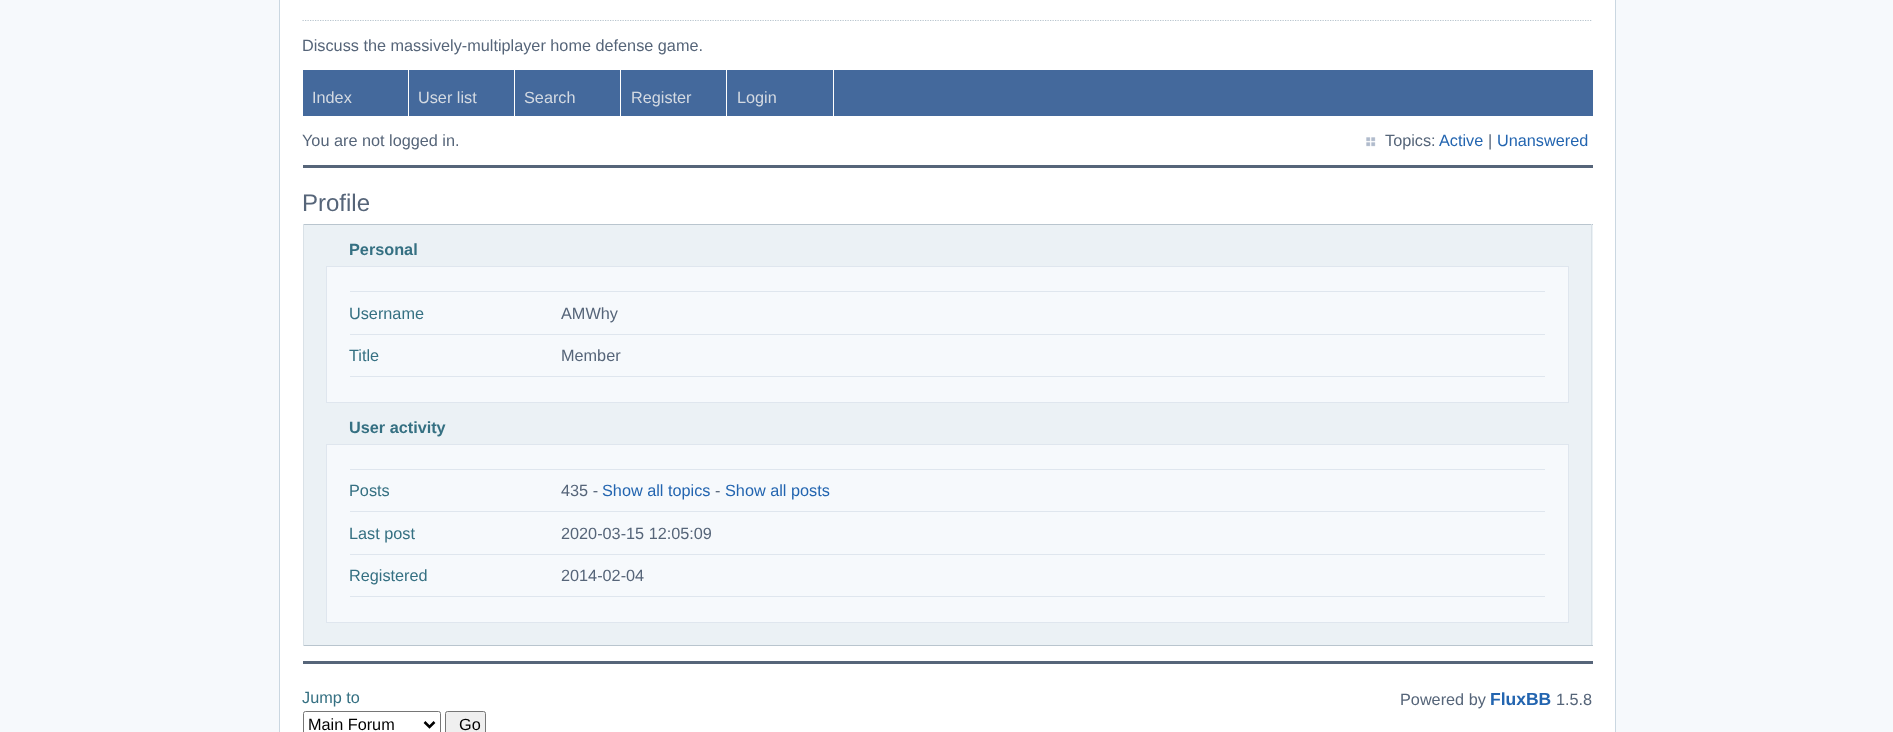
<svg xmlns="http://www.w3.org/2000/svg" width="1893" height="732">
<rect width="100%" height="100%" fill="#f6f9fc"/>
<rect x="279.5" y="-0.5" width="1336" height="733" fill="#fff" stroke="#cad7e1"/>
<path d="M302.5 20.5h1290" fill="none" stroke="#b9c5ce" stroke-width="1.2" stroke-dasharray="1.25 1.25"/>
<text x="302" y="51" style="font-family:Liberation Sans;font-size:16.25px;fill:#566579">Discuss the massively-multiplayer home defense game.</text>
<rect x="303" y="70" width="1290" height="46" fill="#44699c"/>
<rect x="408" y="70" width="1" height="46" fill="#fff"/>
<text x="312" y="103" style="font-family:Liberation Sans;font-size:16.25px;fill:#d4dae2">Index</text>
<rect x="514" y="70" width="1" height="46" fill="#fff"/>
<text x="418" y="103" style="font-family:Liberation Sans;font-size:16.25px;fill:#d4dae2">User list</text>
<rect x="620" y="70" width="1" height="46" fill="#fff"/>
<text x="524" y="103" style="font-family:Liberation Sans;font-size:16.25px;fill:#d4dae2">Search</text>
<rect x="726" y="70" width="1" height="46" fill="#fff"/>
<text x="631" y="103" style="font-family:Liberation Sans;font-size:16.25px;fill:#d4dae2">Register</text>
<rect x="833" y="70" width="1" height="46" fill="#fff"/>
<text x="737" y="103" style="font-family:Liberation Sans;font-size:16.25px;fill:#d4dae2">Login</text>
<text x="302" y="146" style="font-family:Liberation Sans;font-size:16.25px;fill:#566579">You are not logged in.</text>
<image x="1366" y="137" width="10" height="10" href="media/1.png"/>
<text x="1385" y="146" style="font-family:Liberation Sans;font-size:16.25px;fill:#566579">Topics:</text>
<text x="1439" y="146" style="font-family:Liberation Sans;font-size:16.25px;fill:#2365b0">Active</text>
<text x="1488" y="146" style="font-family:Liberation Sans;font-size:16.25px;fill:#566579">|</text>
<text x="1497" y="146" style="font-family:Liberation Sans;font-size:16.25px;fill:#2365b0">Unanswered</text>
<rect x="303" y="165" width="1290" height="3" fill="#566579"/>
<rect x="303" y="661" width="1290" height="3" fill="#566579"/>
<text x="302" y="211" style="font-family:Liberation Sans;font-size:24px;fill:#566579">Profile</text>
<rect x="304" y="225" width="1289" height="420" fill="#ebf1f5"/>
<rect x="303" y="224" width="1290" height="1" fill="#b9c5ce"/>
<rect x="1591" y="224" width="1" height="422" fill="#d9e1e7"/>
<rect x="303" y="645" width="1290" height="1" fill="#b9c5ce"/>
<rect x="303" y="224" width="1" height="422" fill="#d9e1e7"/>
<text x="349" y="255" style="font-family:Liberation Sans;font-size:16.25px;font-weight:bold;fill:#357082">Personal</text>
<rect x="326.5" y="266.5" width="1242" height="136" fill="#f6f9fc" stroke="#dfe6ee"/>
<rect x="350" y="291" width="1195" height="1" fill="#dfe6ee"/>
<text x="349" y="319" style="font-family:Liberation Sans;font-size:16.25px;fill:#357082">Username</text>
<rect x="350" y="334" width="1195" height="1" fill="#dfe6ee"/>
<text x="561" y="319" style="font-family:Liberation Sans;font-size:16.25px;fill:#566579">AMWhy</text>
<text x="349" y="361" style="font-family:Liberation Sans;font-size:16.25px;fill:#357082">Title</text>
<rect x="350" y="376" width="1195" height="1" fill="#dfe6ee"/>
<text x="561" y="361" style="font-family:Liberation Sans;font-size:16.25px;fill:#566579">Member</text>
<text x="349" y="433" style="font-family:Liberation Sans;font-size:16.25px;font-weight:bold;fill:#357082">User activity</text>
<rect x="326.5" y="444.5" width="1242" height="178" fill="#f6f9fc" stroke="#dfe6ee"/>
<rect x="350" y="469" width="1195" height="1" fill="#dfe6ee"/>
<text x="349" y="496" style="font-family:Liberation Sans;font-size:16.25px;fill:#357082">Posts</text>
<rect x="350" y="511" width="1195" height="1" fill="#dfe6ee"/>
<text x="561" y="496" style="font-family:Liberation Sans;font-size:16.25px;fill:#566579">435 -</text>
<text x="602" y="496" style="font-family:Liberation Sans;font-size:16.25px;fill:#2365b0">Show all topics</text>
<text x="715" y="496" style="font-family:Liberation Sans;font-size:16.25px;fill:#566579">-</text>
<text x="725" y="496" style="font-family:Liberation Sans;font-size:16.25px;fill:#2365b0">Show all posts</text>
<text x="349" y="539" style="font-family:Liberation Sans;font-size:16.25px;fill:#357082">Last post</text>
<rect x="350" y="554" width="1195" height="1" fill="#dfe6ee"/>
<text x="561" y="539" style="font-family:Liberation Sans;font-size:16.25px;fill:#566579">2020-03-15 12:05:09</text>
<text x="349" y="581" style="font-family:Liberation Sans;font-size:16.25px;fill:#357082">Registered</text>
<rect x="350" y="596" width="1195" height="1" fill="#dfe6ee"/>
<text x="561" y="581" style="font-family:Liberation Sans;font-size:16.25px;fill:#566579">2014-02-04</text>
<text x="302" y="703" style="font-family:Liberation Sans;font-size:16.25px;fill:#357082">Jump to</text>
<rect x="303.5" y="711.5" width="137" height="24" rx="2" fill="none" stroke="#767676"/>
<path d="M424.5 722l5 5l5-5" fill="none" stroke="#000" stroke-width="2.5"/>
<text x="308" y="730" style="font-family:Liberation Sans;font-size:16.25px;fill:#000">Main Forum</text>
<rect x="445.5" y="711.5" width="40" height="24" rx="2" fill="#efefef" stroke="#767676"/>
<text x="459" y="730" style="font-family:Liberation Sans;font-size:16.25px;fill:#000">Go</text>
<text x="1400" y="705" style="font-family:Liberation Sans;font-size:16.25px;fill:#566579">Powered by</text>
<text x="1490" y="705" style="font-family:Liberation Sans;font-size:17.5px;font-weight:bold;fill:#2365b0">FluxBB</text>
<text x="1556" y="705" style="font-family:Liberation Sans;font-size:16.25px;fill:#566579">1.5.8</text>
</svg>
